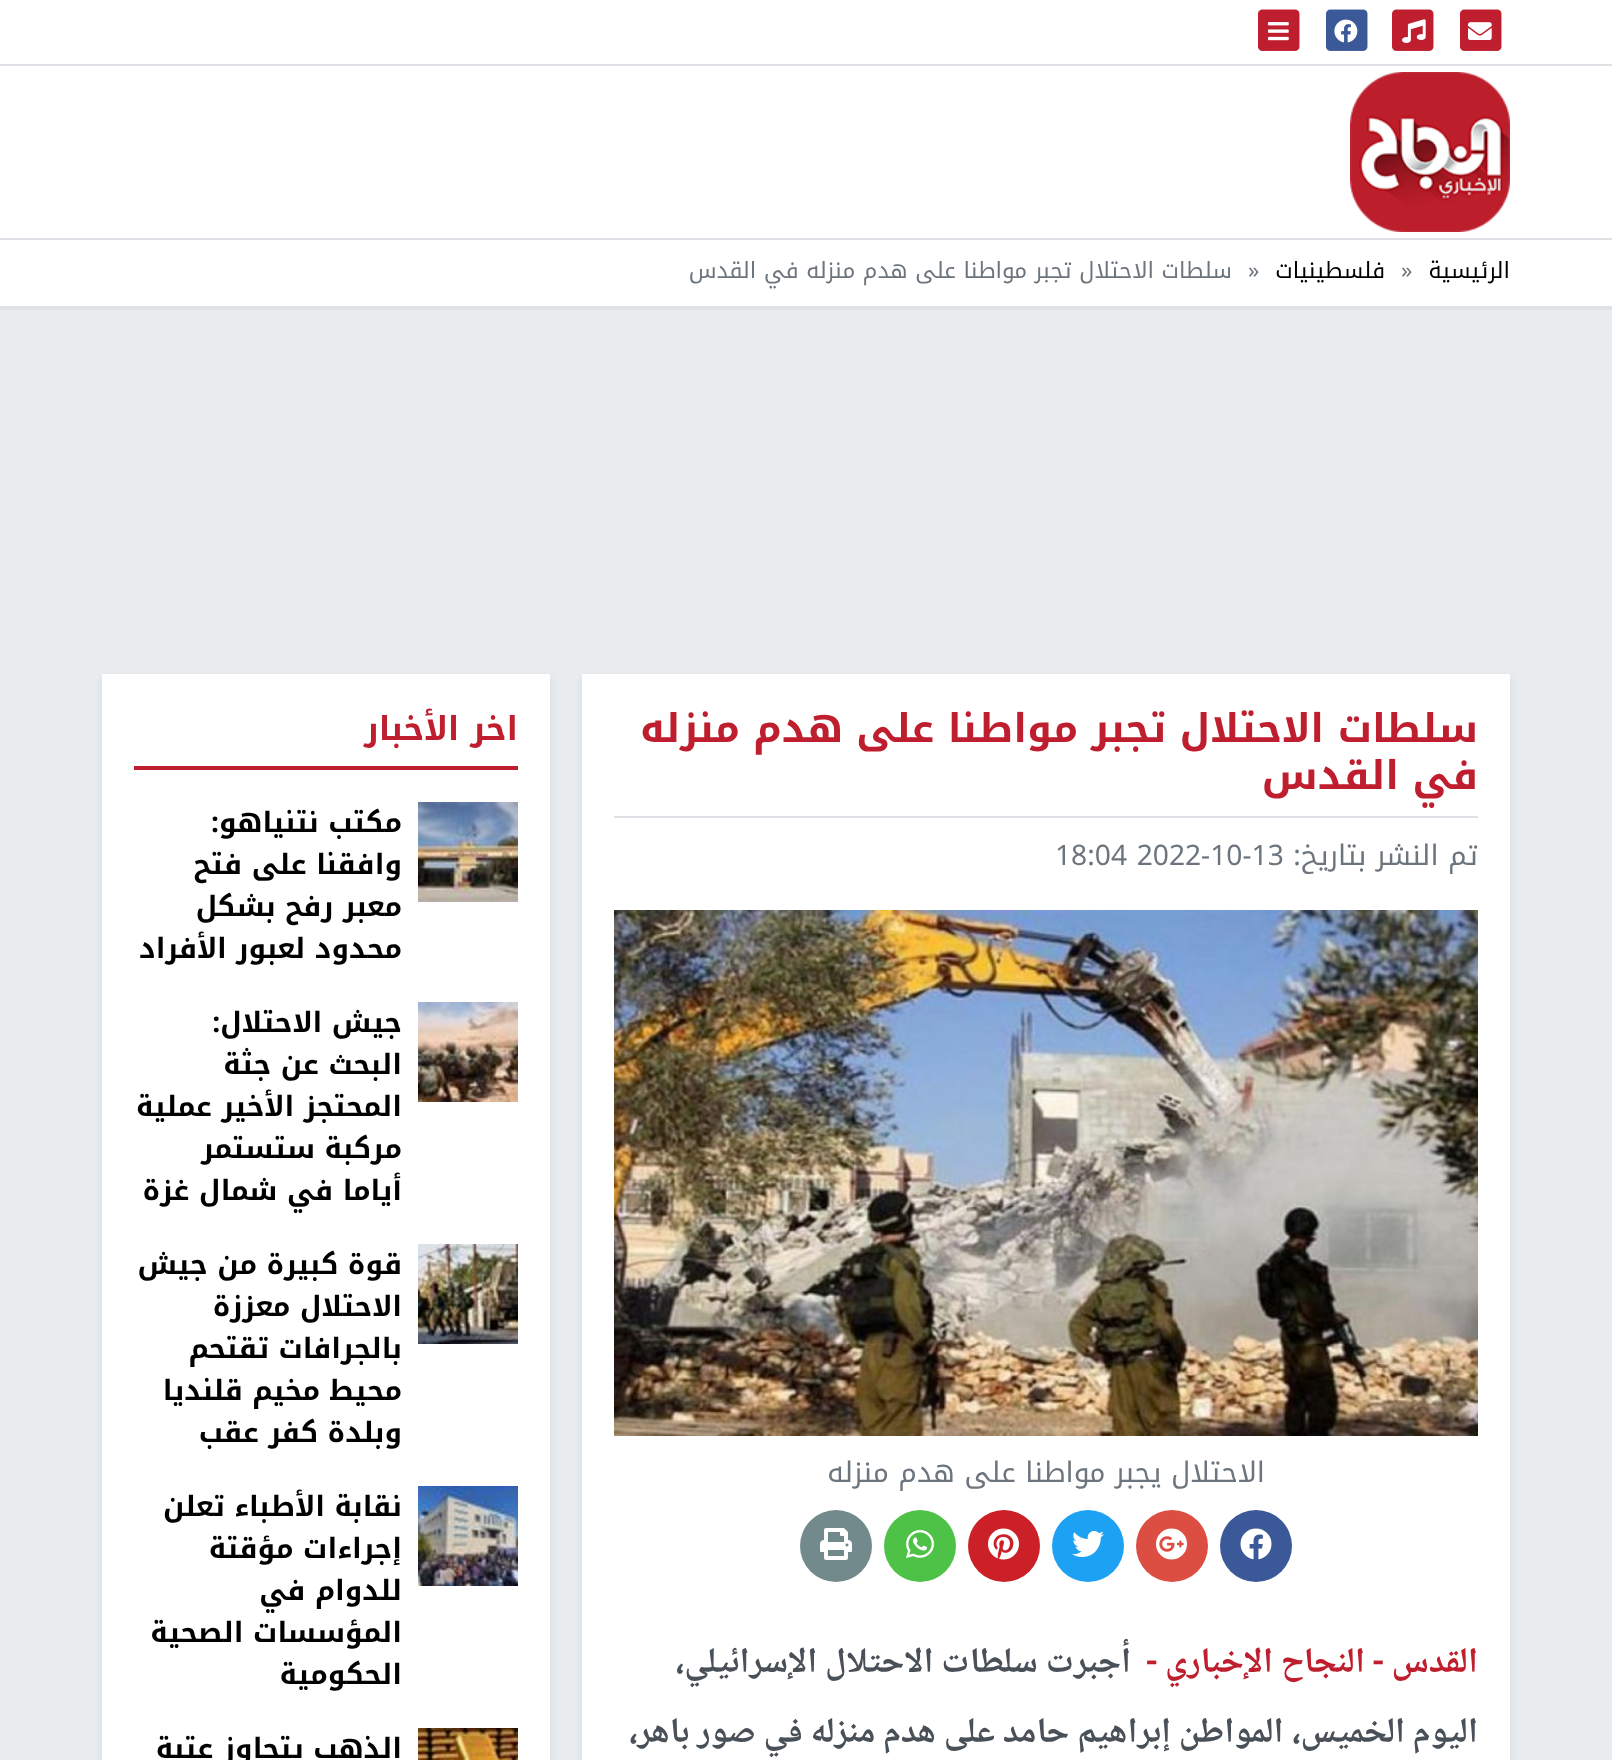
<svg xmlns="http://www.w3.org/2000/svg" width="1612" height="1760">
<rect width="100%" height="100%" fill="#e9ecef"/>
<rect width="1612" height="306" fill="#fff"/>
<rect y="306" width="1612" height="4" fill="#dee2e6"/>
<rect y="64" width="1612" height="2" fill="#dee2e6"/>
<image x="1460" y="9" width="42" height="42" href="media/1.png"/>
<image x="1468" y="22" width="24" height="18" href="media/2.png"/>
<image x="1392" y="9" width="42" height="42" href="media/1.png"/>
<image x="1402" y="19" width="24" height="24" href="media/3.png"/>
<image x="1326" y="9" width="42" height="42" href="media/4.png"/>
<image x="1334" y="19" width="24" height="24" href="media/5.png"/>
<image x="1258" y="9" width="42" height="42" href="media/1.png"/>
<image x="1268" y="22" width="21" height="19" href="media/6.png"/>
<image x="1350" y="72" width="160" height="160" href="media/7.png"/>
<rect y="238" width="1612" height="2" fill="#dee2e6"/>
<text x="1510" y="278" style="font-family:Noto Kufi Arabic;font-size:22.4px;direction:rtl;fill:#000">الرئيسية</text>
<text x="1401" y="278" style="font-family:Noto Kufi Arabic;font-size:22.4px;fill:#6c757d">»</text>
<text x="1385" y="278" style="font-family:Noto Kufi Arabic;font-size:22.4px;direction:rtl;fill:#000">فلسطينيات</text>
<text x="1248" y="278" style="font-family:Noto Kufi Arabic;font-size:22.4px;fill:#6c757d">»</text>
<text x="1232" y="278" style="font-family:Noto Kufi Arabic;font-size:22.4px;direction:rtl;fill:#6c757d">سلطات الاحتلال تجبر مواطنا على هدم منزله في القدس</text>
<rect x="582" y="678" width="928" height="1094" fill="#00000012" filter="blur(4px)"/>
<rect x="582" y="674" width="928" height="1086" fill="#fff"/>
<rect x="614" y="816" width="864" height="2" fill="#dee2e6"/>
<text x="1478" y="742" style="font-family:Noto Kufi Arabic;font-size:39.65px;font-weight:bold;direction:rtl;fill:#be1e2d">سلطات الاحتلال تجبر مواطنا على هدم منزله</text>
<text x="1478" y="789" style="font-family:Noto Kufi Arabic;font-size:39.65px;font-weight:bold;direction:rtl;fill:#be1e2d">في القدس</text>
<text x="1478" y="865" style="font-family:Noto Kufi Arabic;font-size:28.2px;direction:rtl;fill:#6c757d">تم النشر بتاريخ:</text>
<text x="1055" y="865" style="font-family:Noto Kufi Arabic;font-size:28.2px;fill:#6c757d">18:04 2022-10-13</text>
<image x="614" y="910" width="864" height="526" href="media/8.png"/>
<text x="1265" y="1482" style="font-family:Noto Kufi Arabic;font-size:28.2px;direction:rtl;fill:#6c757d">الاحتلال يجبر مواطنا على هدم منزله</text>
<circle cx="1256" cy="1546" r="36" fill="#3b5998"/>
<image x="1240" y="1528" width="32" height="32" href="media/9.png"/>
<circle cx="1172" cy="1546" r="36" fill="#dc4e41"/>
<image x="1156" y="1528" width="31" height="32" href="media/10.png"/>
<circle cx="1088" cy="1546" r="36" fill="#1da1f2"/>
<image x="1072" y="1531" width="32" height="26" href="media/11.png"/>
<circle cx="1004" cy="1546" r="36" fill="#cb2027"/>
<image x="988" y="1528" width="31" height="32" href="media/12.png"/>
<circle cx="920" cy="1546" r="36" fill="#4dc247"/>
<image x="906" y="1530" width="28" height="28" href="media/13.png"/>
<circle cx="836" cy="1546" r="36" fill="#738a8d"/>
<image x="820" y="1528" width="32" height="32" href="media/14.png"/>
<text x="1478" y="1672" style="font-family:Noto Naskh Arabic;font-size:35.2px;font-weight:bold;direction:rtl;fill:#be1e2d">القدس -</text>
<text x="1365" y="1672" style="font-family:Noto Naskh Arabic;font-size:35.2px;font-weight:bold;direction:rtl;fill:#be1e2d">النجاح الإخباري -</text>
<text x="1131" y="1672" style="font-family:Noto Naskh Arabic;font-size:35.2px;font-weight:bold;direction:rtl;fill:#495057">أجبرت سلطات الاحتلال الإسرائيلي،</text>
<text x="1478" y="1742" style="font-family:Noto Naskh Arabic;font-size:35.2px;font-weight:bold;direction:rtl;fill:#495057">اليوم الخميس، المواطن إبراهيم حامد على هدم منزله في صور باهر،</text>
<rect x="102" y="678" width="448" height="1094" fill="#00000012" filter="blur(4px)"/>
<rect x="102" y="674" width="448" height="1086" fill="#fff"/>
<rect x="134" y="766" width="384" height="4" fill="#be1e2d"/>
<text x="518" y="740" style="font-family:Noto Kufi Arabic;font-size:33px;font-weight:bold;direction:rtl;fill:#be1e2d">اخر الأخبار</text>
<image x="418" y="802" width="100" height="100" href="media/15.png"/>
<text x="402" y="832" style="font-family:Noto Kufi Arabic;font-size:28px;font-weight:bold;direction:rtl;fill:#000">مكتب نتنياهو:</text>
<text x="402" y="874" style="font-family:Noto Kufi Arabic;font-size:28px;font-weight:bold;direction:rtl;fill:#000">وافقنا على فتح</text>
<text x="402" y="916" style="font-family:Noto Kufi Arabic;font-size:28px;font-weight:bold;direction:rtl;fill:#000">معبر رفح بشكل</text>
<text x="402" y="958" style="font-family:Noto Kufi Arabic;font-size:28px;font-weight:bold;direction:rtl;fill:#000">محدود لعبور الأفراد</text>
<image x="418" y="1002" width="100" height="100" href="media/16.png"/>
<text x="402" y="1032" style="font-family:Noto Kufi Arabic;font-size:28px;font-weight:bold;direction:rtl;fill:#000">جيش الاحتلال:</text>
<text x="402" y="1074" style="font-family:Noto Kufi Arabic;font-size:28px;font-weight:bold;direction:rtl;fill:#000">البحث عن جثة</text>
<text x="402" y="1116" style="font-family:Noto Kufi Arabic;font-size:28px;font-weight:bold;direction:rtl;fill:#000">المحتجز الأخير عملية</text>
<text x="402" y="1158" style="font-family:Noto Kufi Arabic;font-size:28px;font-weight:bold;direction:rtl;fill:#000">مركبة ستستمر</text>
<text x="402" y="1200" style="font-family:Noto Kufi Arabic;font-size:28px;font-weight:bold;direction:rtl;fill:#000">أياما في شمال غزة</text>
<image x="418" y="1244" width="100" height="100" href="media/17.png"/>
<text x="402" y="1274" style="font-family:Noto Kufi Arabic;font-size:28px;font-weight:bold;direction:rtl;fill:#000">قوة كبيرة من جيش</text>
<text x="402" y="1316" style="font-family:Noto Kufi Arabic;font-size:28px;font-weight:bold;direction:rtl;fill:#000">الاحتلال معززة</text>
<text x="402" y="1358" style="font-family:Noto Kufi Arabic;font-size:28px;font-weight:bold;direction:rtl;fill:#000">بالجرافات تقتحم</text>
<text x="402" y="1400" style="font-family:Noto Kufi Arabic;font-size:28px;font-weight:bold;direction:rtl;fill:#000">محيط مخيم قلنديا</text>
<text x="402" y="1442" style="font-family:Noto Kufi Arabic;font-size:28px;font-weight:bold;direction:rtl;fill:#000">وبلدة كفر عقب</text>
<image x="418" y="1486" width="100" height="100" href="media/18.png"/>
<text x="402" y="1516" style="font-family:Noto Kufi Arabic;font-size:28px;font-weight:bold;direction:rtl;fill:#000">نقابة الأطباء تعلن</text>
<text x="402" y="1558" style="font-family:Noto Kufi Arabic;font-size:28px;font-weight:bold;direction:rtl;fill:#000">إجراءات مؤقتة</text>
<text x="402" y="1600" style="font-family:Noto Kufi Arabic;font-size:28px;font-weight:bold;direction:rtl;fill:#000">للدوام في</text>
<text x="402" y="1642" style="font-family:Noto Kufi Arabic;font-size:28px;font-weight:bold;direction:rtl;fill:#000">المؤسسات الصحية</text>
<text x="402" y="1684" style="font-family:Noto Kufi Arabic;font-size:28px;font-weight:bold;direction:rtl;fill:#000">الحكومية</text>
<image x="418" y="1728" width="100" height="32" href="media/19.png"/>
<text x="402" y="1758" style="font-family:Noto Kufi Arabic;font-size:28px;font-weight:bold;direction:rtl;fill:#000">الذهب يتجاوز عتبة</text>
</svg>
